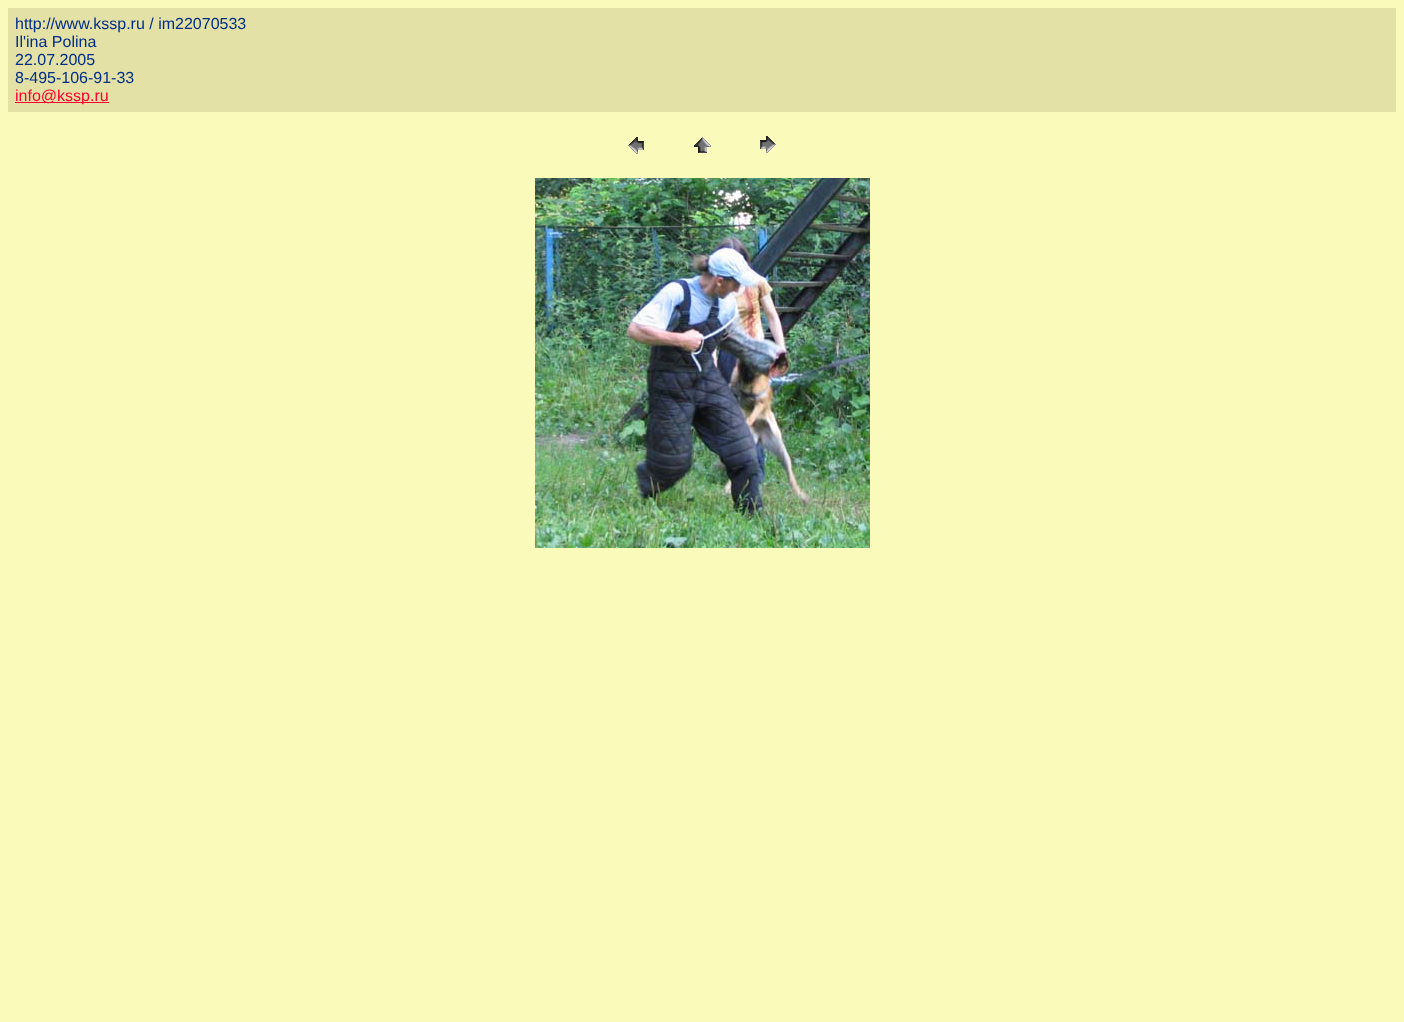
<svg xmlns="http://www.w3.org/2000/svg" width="1404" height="1022">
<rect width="100%" height="100%" fill="#fafabb"/>
<rect x="8" y="8" width="1388" height="104" fill="#e3e1a5"/>
<text x="15" y="29" style="font-family:Liberation Sans;font-size:16px;fill:#022e88">http://www.kssp.ru / im22070533</text>
<text x="15" y="47" style="font-family:Liberation Sans;font-size:16px;fill:#022e88">Il'ina Polina</text>
<text x="15" y="65" style="font-family:Liberation Sans;font-size:16px;fill:#022e88">22.07.2005</text>
<text x="15" y="83" style="font-family:Liberation Sans;font-size:16px;fill:#022e88">8-495-106-91-33</text>
<rect x="15" y="102" width="94" height="1" fill="#ff0030"/>
<text x="15" y="101" style="font-family:Liberation Sans;font-size:16px;fill:#ff0030">info@kssp.ru</text>
<image x="628" y="137" width="16" height="17" href="media/1.png"/>
<image x="694" y="137" width="17" height="16" href="media/2.png"/>
<image x="760" y="136" width="16" height="17" href="media/3.png"/>
<image x="535" y="178" width="335" height="370" href="media/4.png"/>
</svg>
